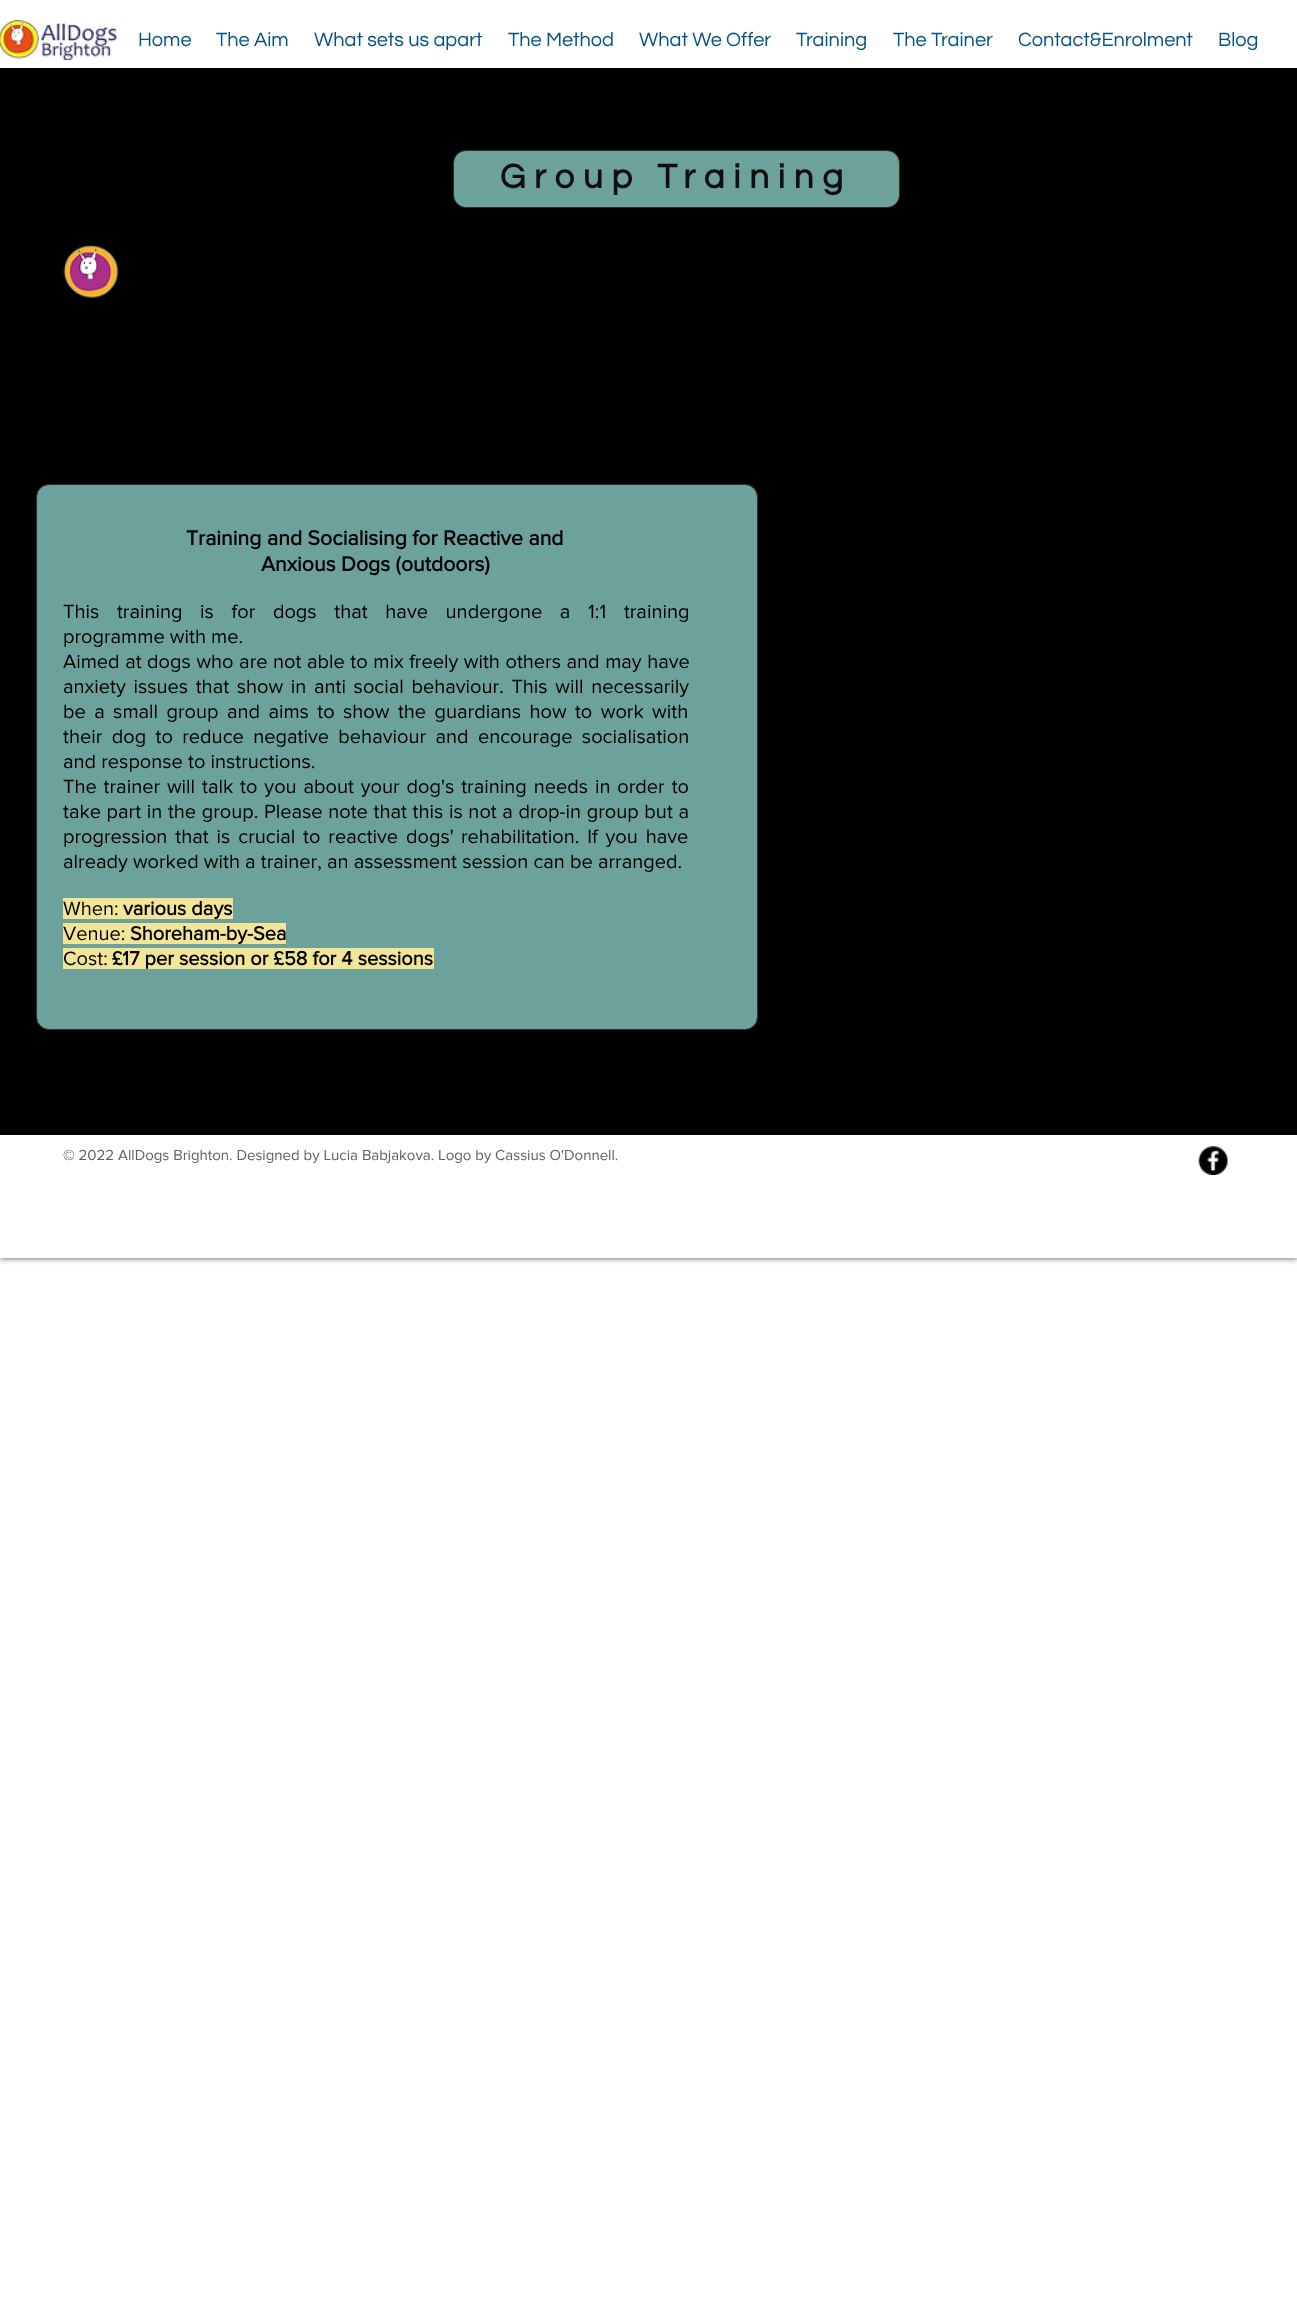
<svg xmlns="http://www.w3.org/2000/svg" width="1297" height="2304">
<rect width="100%" height="100%" fill="#fff"/>
<image x="0" y="20" width="117" height="40" href="media/1.png"/>
<text x="138" y="46" style="font-family:Questrial;font-size:20px;fill:#045184">Home</text>
<text x="216" y="46" style="font-family:Questrial;font-size:20px;fill:#045184">The Aim</text>
<text x="314" y="46" style="font-family:Questrial;font-size:20px;fill:#045184">What sets us apart</text>
<text x="508" y="46" style="font-family:Questrial;font-size:20px;fill:#045184">The Method</text>
<text x="639" y="46" style="font-family:Questrial;font-size:20px;fill:#045184">What We Offer</text>
<text x="796" y="46" style="font-family:Questrial;font-size:20px;fill:#045184">Training</text>
<text x="893" y="46" style="font-family:Questrial;font-size:20px;fill:#045184">The Trainer</text>
<text x="1018" y="46" style="font-family:Questrial;font-size:20px;fill:#045184">Contact&amp;Enrolment</text>
<text x="1218" y="46" style="font-family:Questrial;font-size:20px;fill:#045184">Blog</text>
<rect y="68" width="1297" height="1067" fill="#000"/>
<rect x="453.5" y="150.5" width="446" height="57" rx="12.5" fill="#6da19c" stroke="#2f2e2e"/>
<text x="500" y="188" style="font-family:Questrial;font-size:35px;font-weight:bold;letter-spacing:8.75px;fill:#0f0f0f">Group Training</text>
<image x="63" y="245" width="56" height="54" href="media/2.png"/>
<rect x="36.5" y="484.5" width="721" height="545" rx="12.5" fill="#6da19c" stroke="#2f2e2e"/>
<text x="186" y="545" style="font-family:'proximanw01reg';font-size:21.25px;font-weight:bold;fill:#000">Training and Socialising for Reactive and</text>
<text x="261" y="571" style="font-family:'proximanw01reg';font-size:21.25px;font-weight:bold;fill:#000">Anxious Dogs (outdoors)</text>
<text x="63" y="618" word-spacing="12.5" style="font-family:'proximanw01reg';font-size:20px;fill:#000">This training is for dogs that have undergone a 1:1 training</text>
<text x="63" y="643" style="font-family:'proximanw01reg';font-size:20px;fill:#000">programme with me.</text>
<text x="63" y="668" word-spacing="0.4" style="font-family:'proximanw01reg';font-size:20px;fill:#000">Aimed at dogs who are not able to mix freely with others and may have</text>
<text x="63" y="693" word-spacing="2.5" style="font-family:'proximanw01reg';font-size:20px;fill:#000">anxiety issues that show in anti social behaviour. This will necessarily</text>
<text x="63" y="718" word-spacing="3.25" style="font-family:'proximanw01reg';font-size:20px;fill:#000">be a small group and aims to show the guardians how to work with</text>
<text x="63" y="743" word-spacing="4.25" style="font-family:'proximanw01reg';font-size:20px;fill:#000">their dog to reduce negative behaviour and encourage socialisation</text>
<text x="63" y="768" style="font-family:'proximanw01reg';font-size:20px;fill:#000">and response to instructions.</text>
<text x="63" y="793" word-spacing="1.75" style="font-family:'proximanw01reg';font-size:20px;fill:#000">The trainer will talk to you about your dog's training needs in order to</text>
<text x="63" y="818" word-spacing="0.5" style="font-family:'proximanw01reg';font-size:20px;fill:#000">take part in the group. Please note that this is not a drop-in group but a</text>
<text x="63" y="843" word-spacing="2.75" style="font-family:'proximanw01reg';font-size:20px;fill:#000">progression that is crucial to reactive dogs'</text>
<text x="461" y="843" word-spacing="2.75" style="font-family:'proximanw01reg';font-size:20px;fill:#000">rehabilitation. If you have</text>
<text x="63" y="868" style="font-family:'proximanw01reg';font-size:20px;fill:#000">already worked with a trainer, an assessment session can be arranged.</text>
<rect x="63" y="898" width="170" height="21" fill="#f3e598"/>
<text x="63" y="915" style="font-family:'proximanw01reg';font-size:20px;fill:#000">When:</text>
<text x="123" y="915" style="font-family:'proximanw01reg';font-size:20px;font-weight:bold;fill:#000">various days</text>
<rect x="63" y="923" width="223" height="21" fill="#f3e598"/>
<text x="63" y="940" style="font-family:'proximanw01reg';font-size:20px;fill:#000">Venue:</text>
<text x="130" y="940" style="font-family:'proximanw01reg';font-size:20px;font-weight:bold;fill:#000">Shoreham-by-Sea</text>
<rect x="63" y="948" width="371" height="21" fill="#f3e598"/>
<text x="63" y="965" style="font-family:'proximanw01reg';font-size:20px;fill:#000">Cost:</text>
<text x="112" y="965" style="font-family:'proximanw01reg';font-size:20px;font-weight:bold;fill:#000">£17 per session or £58 for 4 sessions</text>
<rect y="1135" width="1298" height="123" fill="#000000b3" filter="blur(3px)"/>
<rect y="1135" width="1297" height="123" fill="#fff"/>
<text x="63" y="1160" style="font-family:'proximanw01reg';font-size:15px;fill:#605e5e">© 2022 AllDogs Brighton. Designed by Lucia Babjakova. Logo by Cassius O'Donnell.</text>
<image x="1198" y="1146" width="30" height="29" href="media/3.png"/>
</svg>
